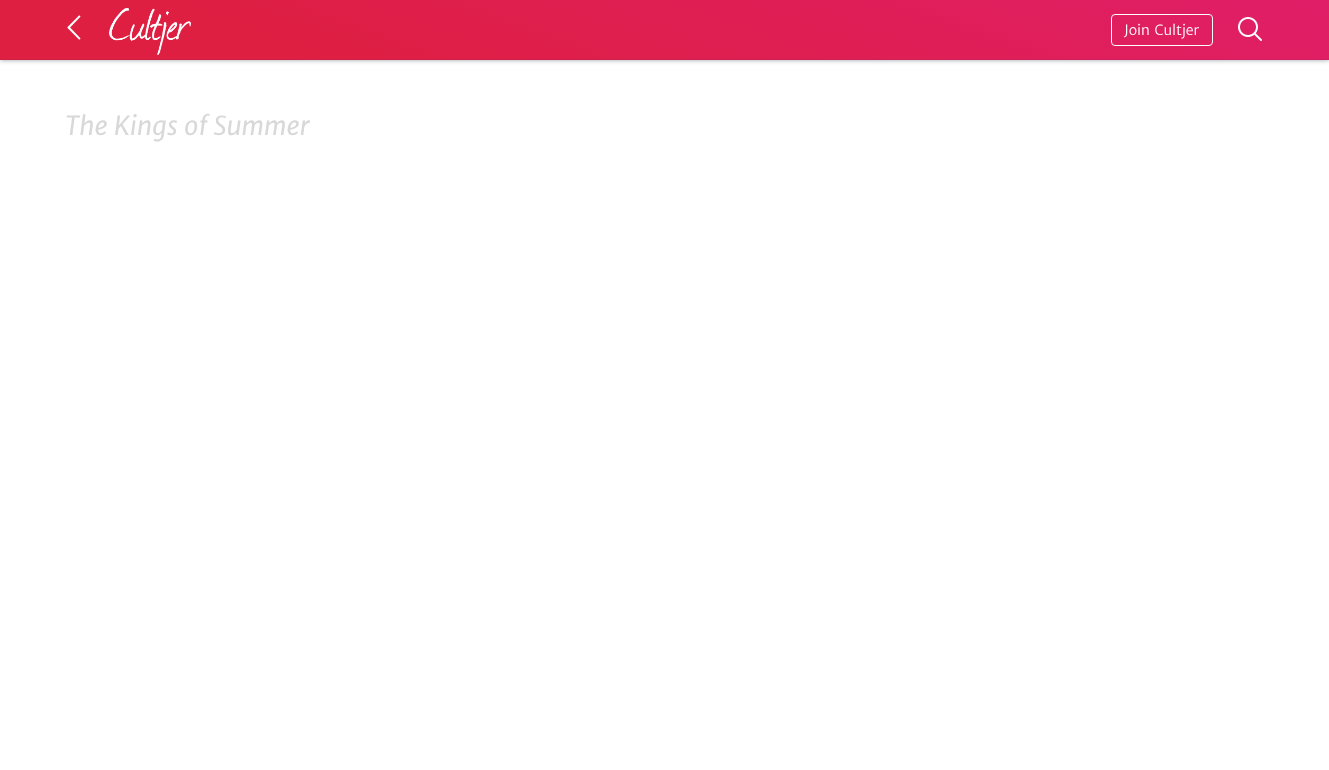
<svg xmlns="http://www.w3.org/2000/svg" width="1329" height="770">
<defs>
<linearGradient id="g1" gradientUnits="userSpaceOnUse" x1="577" y1="269" x2="752" y2="-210"><stop offset="0.2" stop-color="#de1f41"/><stop offset="1" stop-color="#e01e68"/></linearGradient>
<linearGradient id="g2" gradientUnits="userSpaceOnUse" x1="577" y1="328" x2="752" y2="-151"><stop offset="0.2" stop-color="#cd2140"/><stop offset="1" stop-color="#cf2063"/></linearGradient>
</defs>
<rect width="100%" height="100%" fill="#fff"/>
<rect width="1329" height="60" fill="#373c5080" filter="blur(2.5px)"/>
<rect width="1329" height="59" fill="url(#g1)"/>
<rect y="59" width="1329" height="1" fill="url(#g2)"/>
<image x="67" y="15" width="14" height="25" href="media/1.png"/>
<image x="109" y="8" width="82" height="47" href="media/2.png"/>
<rect x="1111.5" y="14.5" width="101" height="31" rx="3.5" fill="none" stroke="#fff"/>
<text x="1124" y="35" style="font-family:Merriweather Sans;font-size:14px;fill:#fff">Join Cultjer</text>
<image x="1238" y="17" width="24" height="24" href="media/3.png"/>
<text x="65" y="135" style="font-family:Merriweather Sans;font-size:26px;font-style:italic;fill:#d8d8d8">The Kings of Summer</text>
</svg>
